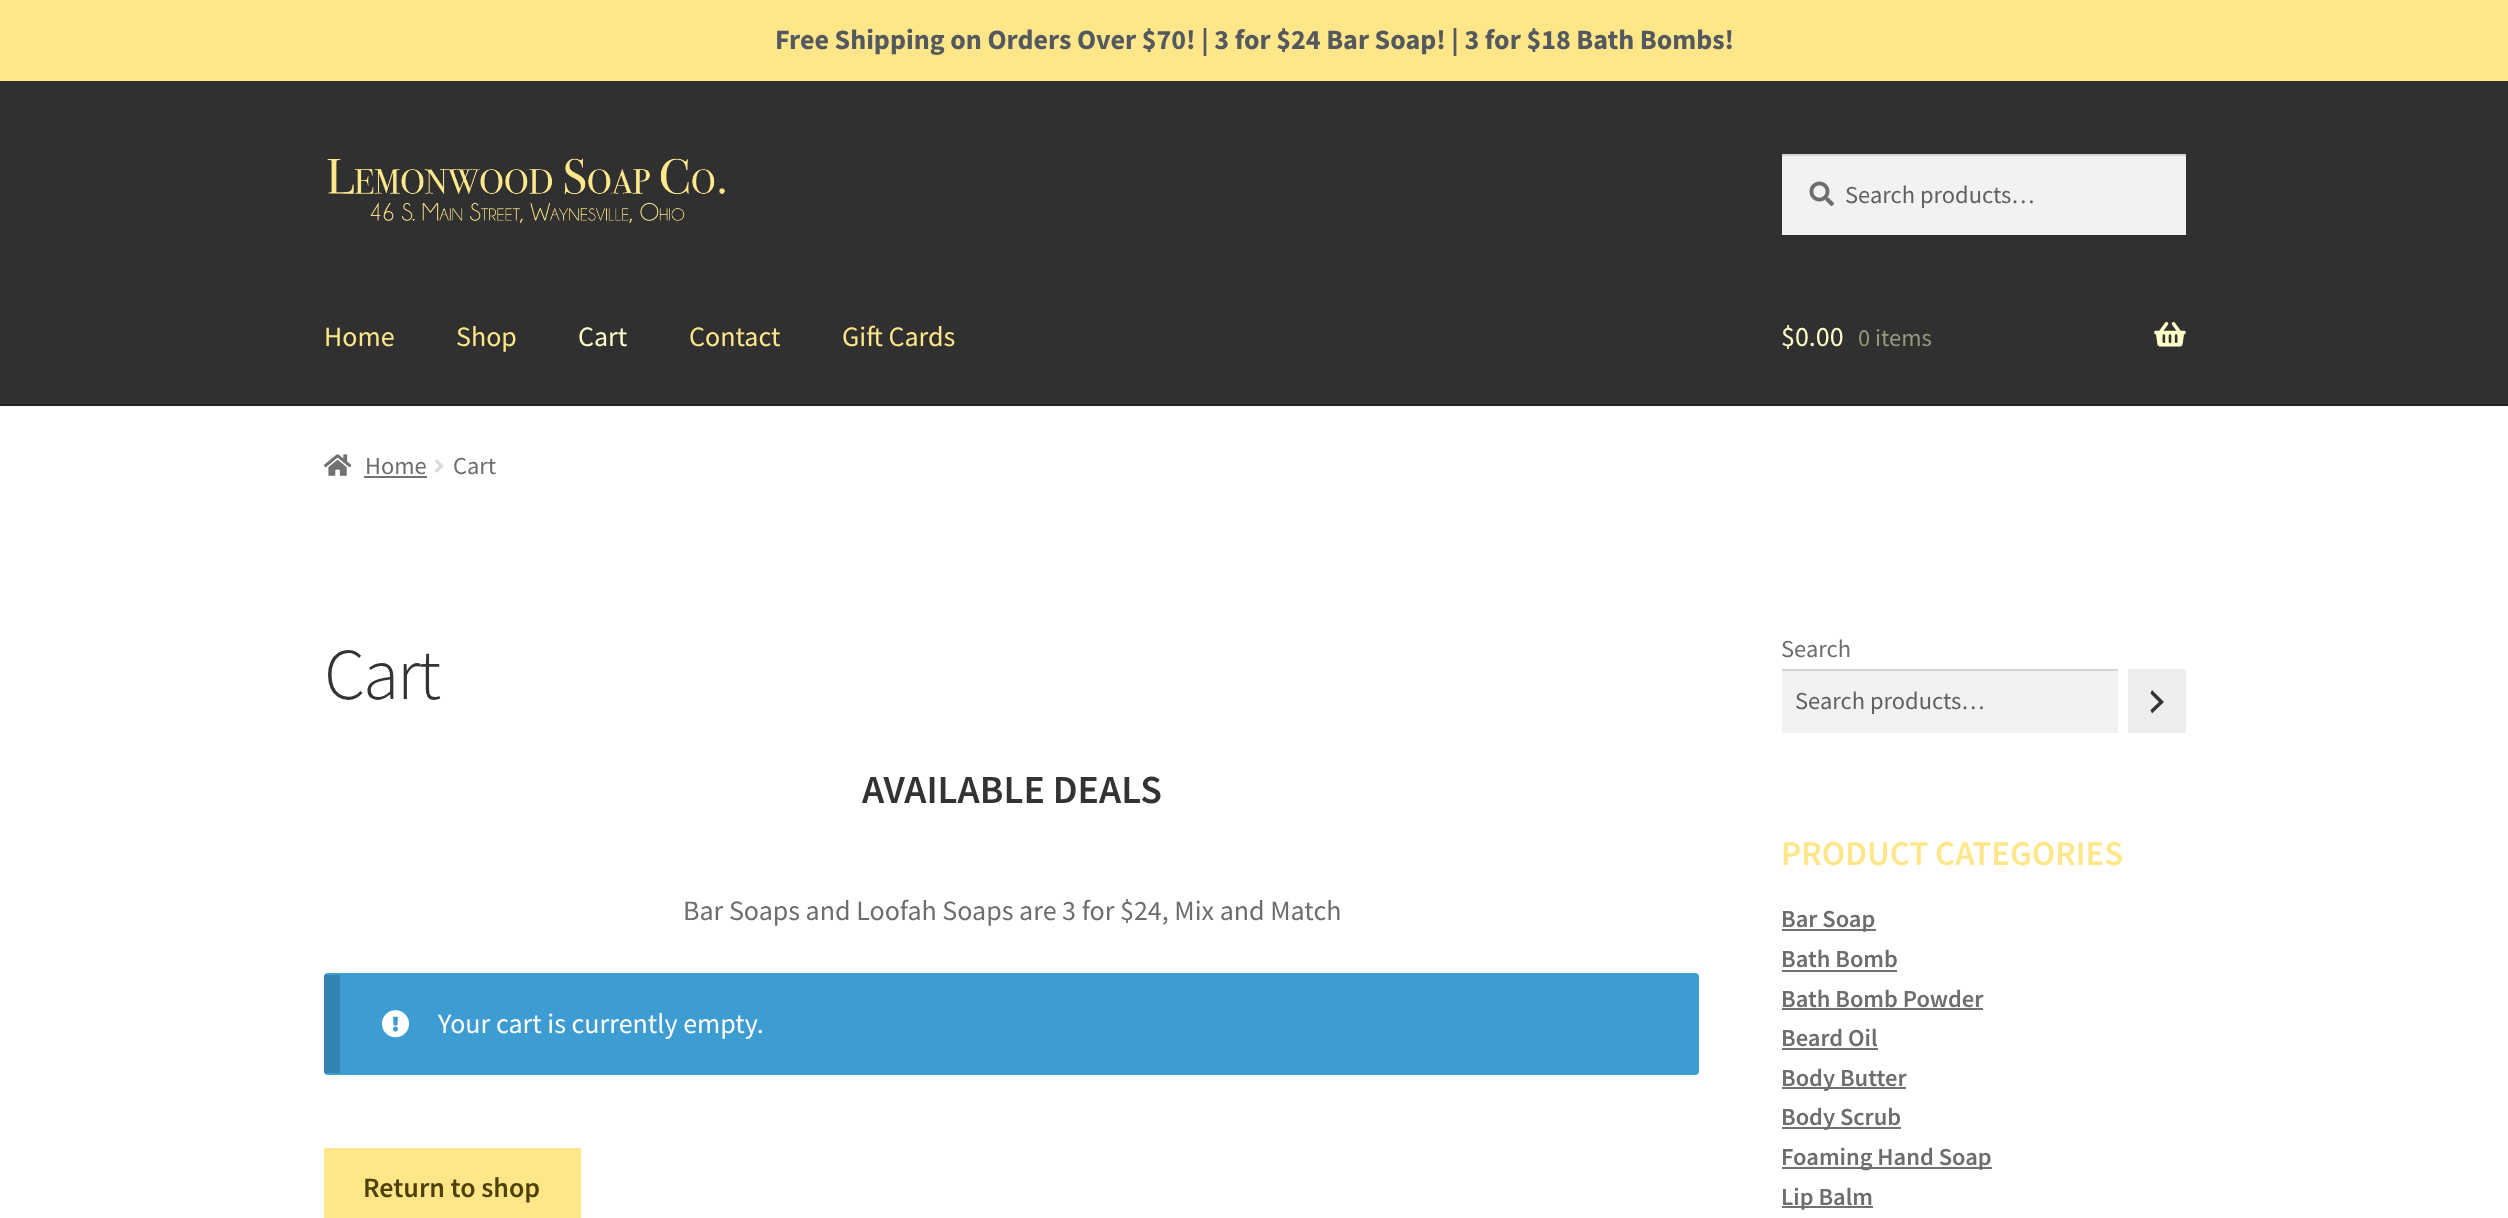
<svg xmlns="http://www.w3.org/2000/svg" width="2508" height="1218">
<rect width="100%" height="100%" fill="#fff"/>
<rect width="2508" height="81" fill="#ffe789"/>
<text x="775" y="49" style="font-family:Source Sans Pro;font-size:28px;font-weight:bold;fill:#54595f">Free Shipping on Orders Over $70! | 3 for $24 Bar Soap! | 3 for $18 Bath Bombs!</text>
<rect y="81" width="2508" height="323" fill="#303030"/>
<rect y="404" width="2508" height="2" fill="#212121"/>
<image x="327" y="158" width="398" height="65" href="media/1.png"/>
<rect x="1782" y="156" width="404" height="79" fill="#f2f2f2"/>
<image x="1809" y="181" width="25" height="25" href="media/2.png"/>
<rect x="1782" y="154" width="404" height="2" fill="#d4d4d4"/>
<text x="1845" y="203" style="font-family:Source Sans Pro;font-size:24.5px;fill:#616161">Search products…</text>
<text x="324" y="346" style="font-family:Source Sans Pro;font-size:28px;fill:#ffe789">Home</text>
<text x="456" y="346" style="font-family:Source Sans Pro;font-size:28px;fill:#ffe789">Shop</text>
<text x="578" y="346" style="font-family:Source Sans Pro;font-size:28px;fill:#ffffca">Cart</text>
<text x="689" y="346" style="font-family:Source Sans Pro;font-size:28px;fill:#ffe789">Contact</text>
<text x="842" y="346" style="font-family:Source Sans Pro;font-size:28px;fill:#ffe789">Gift Cards</text>
<text x="1781" y="346" style="font-family:Source Sans Pro;font-size:28px;fill:#ffffca">$0.00</text>
<text x="1858" y="346" style="font-family:Source Sans Pro;font-size:24.5px;fill:#98987d">0 items</text>
<image x="2154" y="322" width="32" height="25" href="media/3.png"/>
<image x="323" y="454" width="29" height="22" href="media/4.png"/>
<text x="365" y="474" style="font-family:Source Sans Pro;font-size:24.5px;fill:#6d6d6d">Home</text>
<rect x="364" y="476" width="63" height="2" fill="#727272"/>
<image x="435" y="459" width="9" height="14" href="media/5.png"/>
<text x="453" y="474" style="font-family:Source Sans Pro;font-size:24.5px;fill:#6d6d6d">Cart</text>
<text x="324" y="699" style="font-family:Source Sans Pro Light;font-size:73px;font-weight:300;letter-spacing:-2px;fill:#333">Cart</text>
<text x="862" y="803" style="font-family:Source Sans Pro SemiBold;font-size:39.75px;font-weight:600;fill:#333">AVAILABLE DEALS</text>
<text x="683" y="920" style="font-family:Source Sans Pro;font-size:28px;fill:#6d6d6d">Bar Soaps and Loofah Soaps are 3 for $24, Mix and Match</text>
<rect x="324" y="973" width="1375" height="102" rx="4" fill="#3d9cd2"/>
<rect x="324" y="975" width="16" height="98" fill="#00000026"/>
<image x="381" y="1010" width="29" height="28" href="media/6.png"/>
<text x="438" y="1033" style="font-family:Source Sans Pro;font-size:28px;fill:#fff">Your cart is currently empty.</text>
<rect x="324" y="1148" width="257" height="70" fill="#ffe789"/>
<text x="363" y="1197" style="font-family:Source Sans Pro SemiBold;font-size:28px;font-weight:600;fill:#4e4008">Return to shop</text>
<text x="1781" y="657" style="font-family:Source Sans Pro;font-size:24.5px;fill:#6d6d6d">Search</text>
<rect x="1782" y="671" width="336" height="62" fill="#f2f2f2"/>
<rect x="1782" y="669" width="336" height="2" fill="#d4d4d4"/>
<text x="1795" y="709" style="font-family:Source Sans Pro;font-size:24.5px;fill:#616161">Search products…</text>
<rect x="2128" y="669" width="58" height="64" fill="#eee"/>
<path d="M2150.5 710l8.5-8l-8.5-8.5l1.5-3.5l12 12l-12 11.5z" fill="#333"/>
<text x="1781" y="865" style="font-family:Source Sans Pro SemiBold;font-size:34.75px;font-weight:600;fill:#ffe789">PRODUCT CATEGORIES</text>
<rect x="1782" y="929" width="94" height="2" fill="#727272"/>
<text x="1781" y="927" style="font-family:Source Sans Pro SemiBold;font-size:24.5px;font-weight:600;fill:#6d6d6d">Bar Soap</text>
<text x="1781" y="967" style="font-family:Source Sans Pro SemiBold;font-size:24.5px;font-weight:600;fill:#6d6d6d">Bath Bomb</text>
<rect x="1782" y="970" width="115" height="2" fill="#727272"/>
<text x="1781" y="1007" style="font-family:Source Sans Pro SemiBold;font-size:24.5px;font-weight:600;fill:#6d6d6d">Bath Bomb Powder</text>
<rect x="1782" y="1008" width="201" height="2" fill="#727272"/>
<text x="1781" y="1046" style="font-family:Source Sans Pro SemiBold;font-size:24.5px;font-weight:600;fill:#6d6d6d">Beard Oil</text>
<rect x="1782" y="1048" width="96" height="2" fill="#727272"/>
<rect x="1782" y="1087" width="124" height="2" fill="#727272"/>
<text x="1781" y="1086" style="font-family:Source Sans Pro SemiBold;font-size:24.5px;font-weight:600;fill:#6d6d6d">Body Butter</text>
<rect x="1782" y="1127" width="119" height="2" fill="#727272"/>
<text x="1781" y="1125" style="font-family:Source Sans Pro SemiBold;font-size:24.5px;font-weight:600;fill:#6d6d6d">Body Scrub</text>
<rect x="1782" y="1167" width="210" height="2" fill="#727272"/>
<text x="1781" y="1165" style="font-family:Source Sans Pro SemiBold;font-size:24.5px;font-weight:600;fill:#6d6d6d">Foaming Hand Soap</text>
<rect x="1782" y="1206" width="91" height="2" fill="#727272"/>
<text x="1781" y="1205" style="font-family:Source Sans Pro SemiBold;font-size:24.5px;font-weight:600;fill:#6d6d6d">Lip Balm</text>
</svg>
